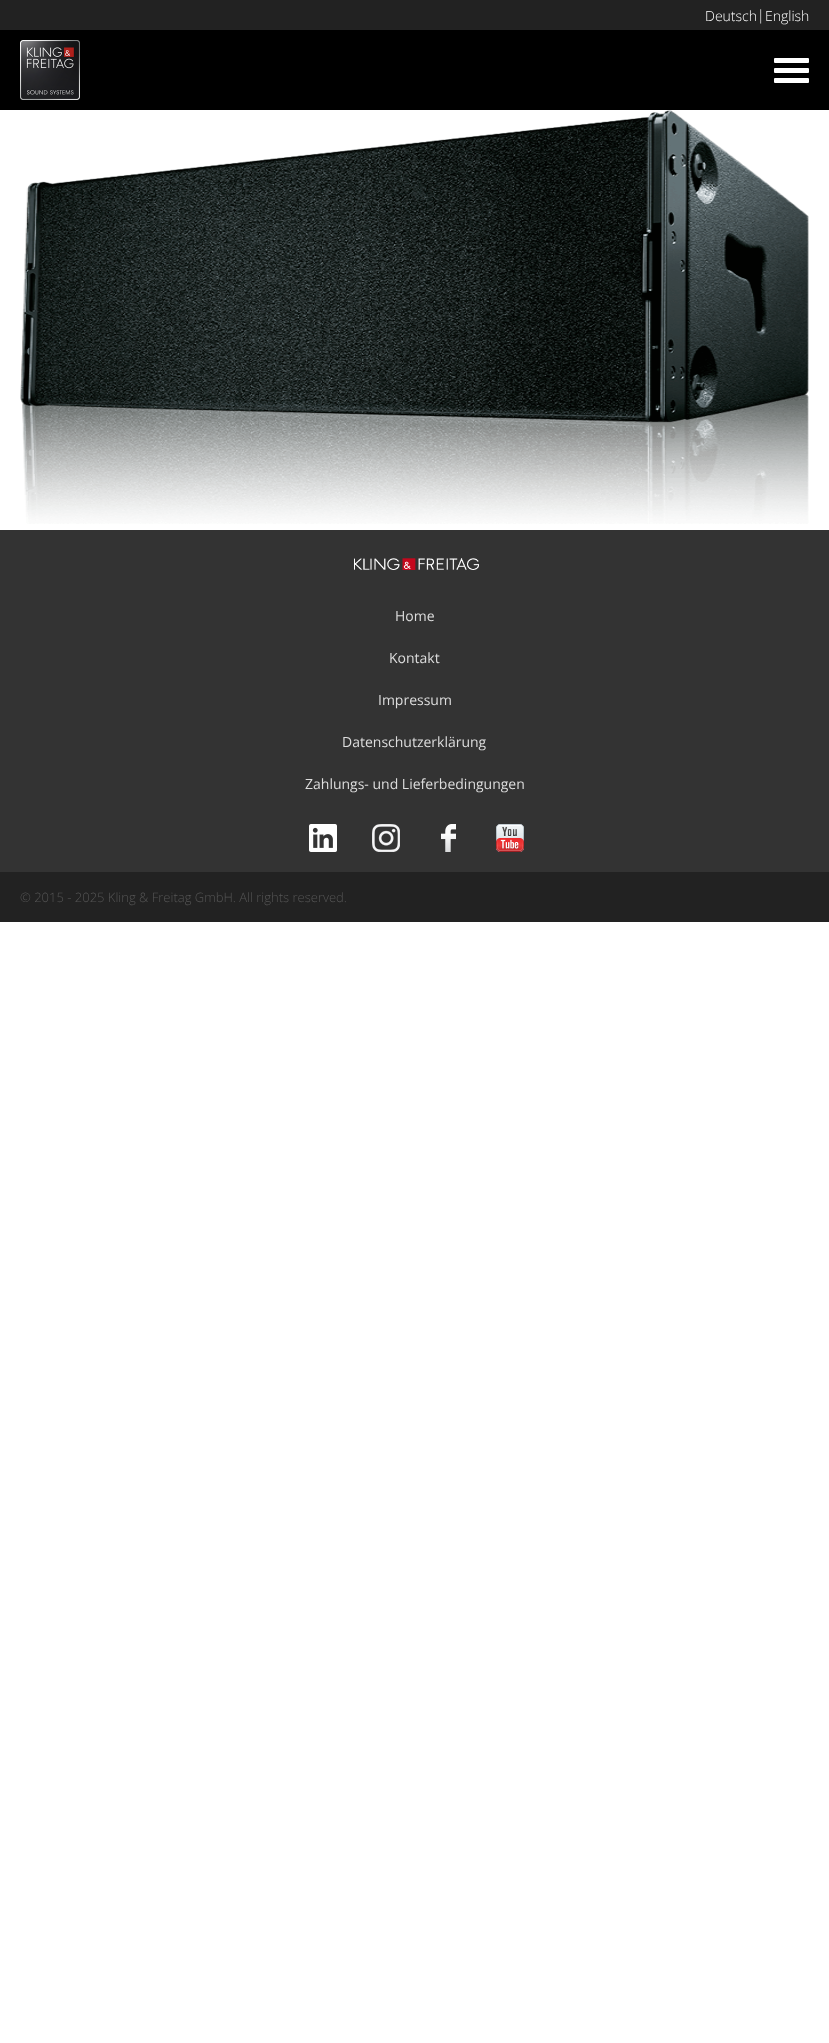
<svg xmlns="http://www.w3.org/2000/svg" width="829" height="2043">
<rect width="100%" height="100%" fill="#fff"/>
<rect y="30" width="829" height="80" fill="#000"/>
<rect width="829" height="30" fill="#222"/>
<text x="705" y="21" style="font-family:Open Sans;font-size:14px;font-weight:300;fill:#fff">Deutsch</text>
<text x="757" y="20" style="font-family:Open Sans;font-size:14px;font-weight:300;fill:#fff">|</text>
<text x="765" y="21" style="font-family:Open Sans;font-size:14px;font-weight:300;fill:#fff">English</text>
<image x="20" y="40" width="60" height="60" href="media/1.png"/>
<rect x="774" y="68" width="35" height="5" rx="1" fill="#fff"/>
<rect x="774" y="58" width="35" height="5" rx="1" fill="#fff"/>
<rect x="774" y="78" width="35" height="5" rx="1" fill="#fff"/>
<image x="20" y="110" width="789" height="414" href="media/2.png"/>
<rect y="530" width="829" height="342" fill="#333"/>
<image x="354" y="558" width="125" height="12" href="media/3.png"/>
<text x="395" y="621" style="font-family:Open Sans;font-size:14px;fill:#ddd">Home</text>
<text x="389" y="663" style="font-family:Open Sans;font-size:14px;fill:#ddd">Kontakt</text>
<text x="378" y="705" style="font-family:Open Sans;font-size:14px;fill:#ddd">Impressum</text>
<text x="342" y="747" style="font-family:Open Sans;font-size:14px;fill:#ddd">Datenschutzerklärung</text>
<text x="305" y="789" style="font-family:Open Sans;font-size:14px;fill:#ddd">Zahlungs- und Lieferbedingungen</text>
<image x="309" y="824" width="28" height="28" href="media/4.png"/>
<image x="372" y="824" width="28" height="28" href="media/5.png"/>
<image x="441" y="824" width="15" height="28" href="media/6.png"/>
<image x="496" y="824" width="28" height="28" href="media/7.png"/>
<rect y="872" width="829" height="50" fill="#222"/>
<text x="20" y="902" style="font-family:Open Sans;font-size:13px;font-weight:300;fill:#555">© 2015 - 2025 Kling &amp; Freitag GmbH. All rights reserved.</text>
</svg>
